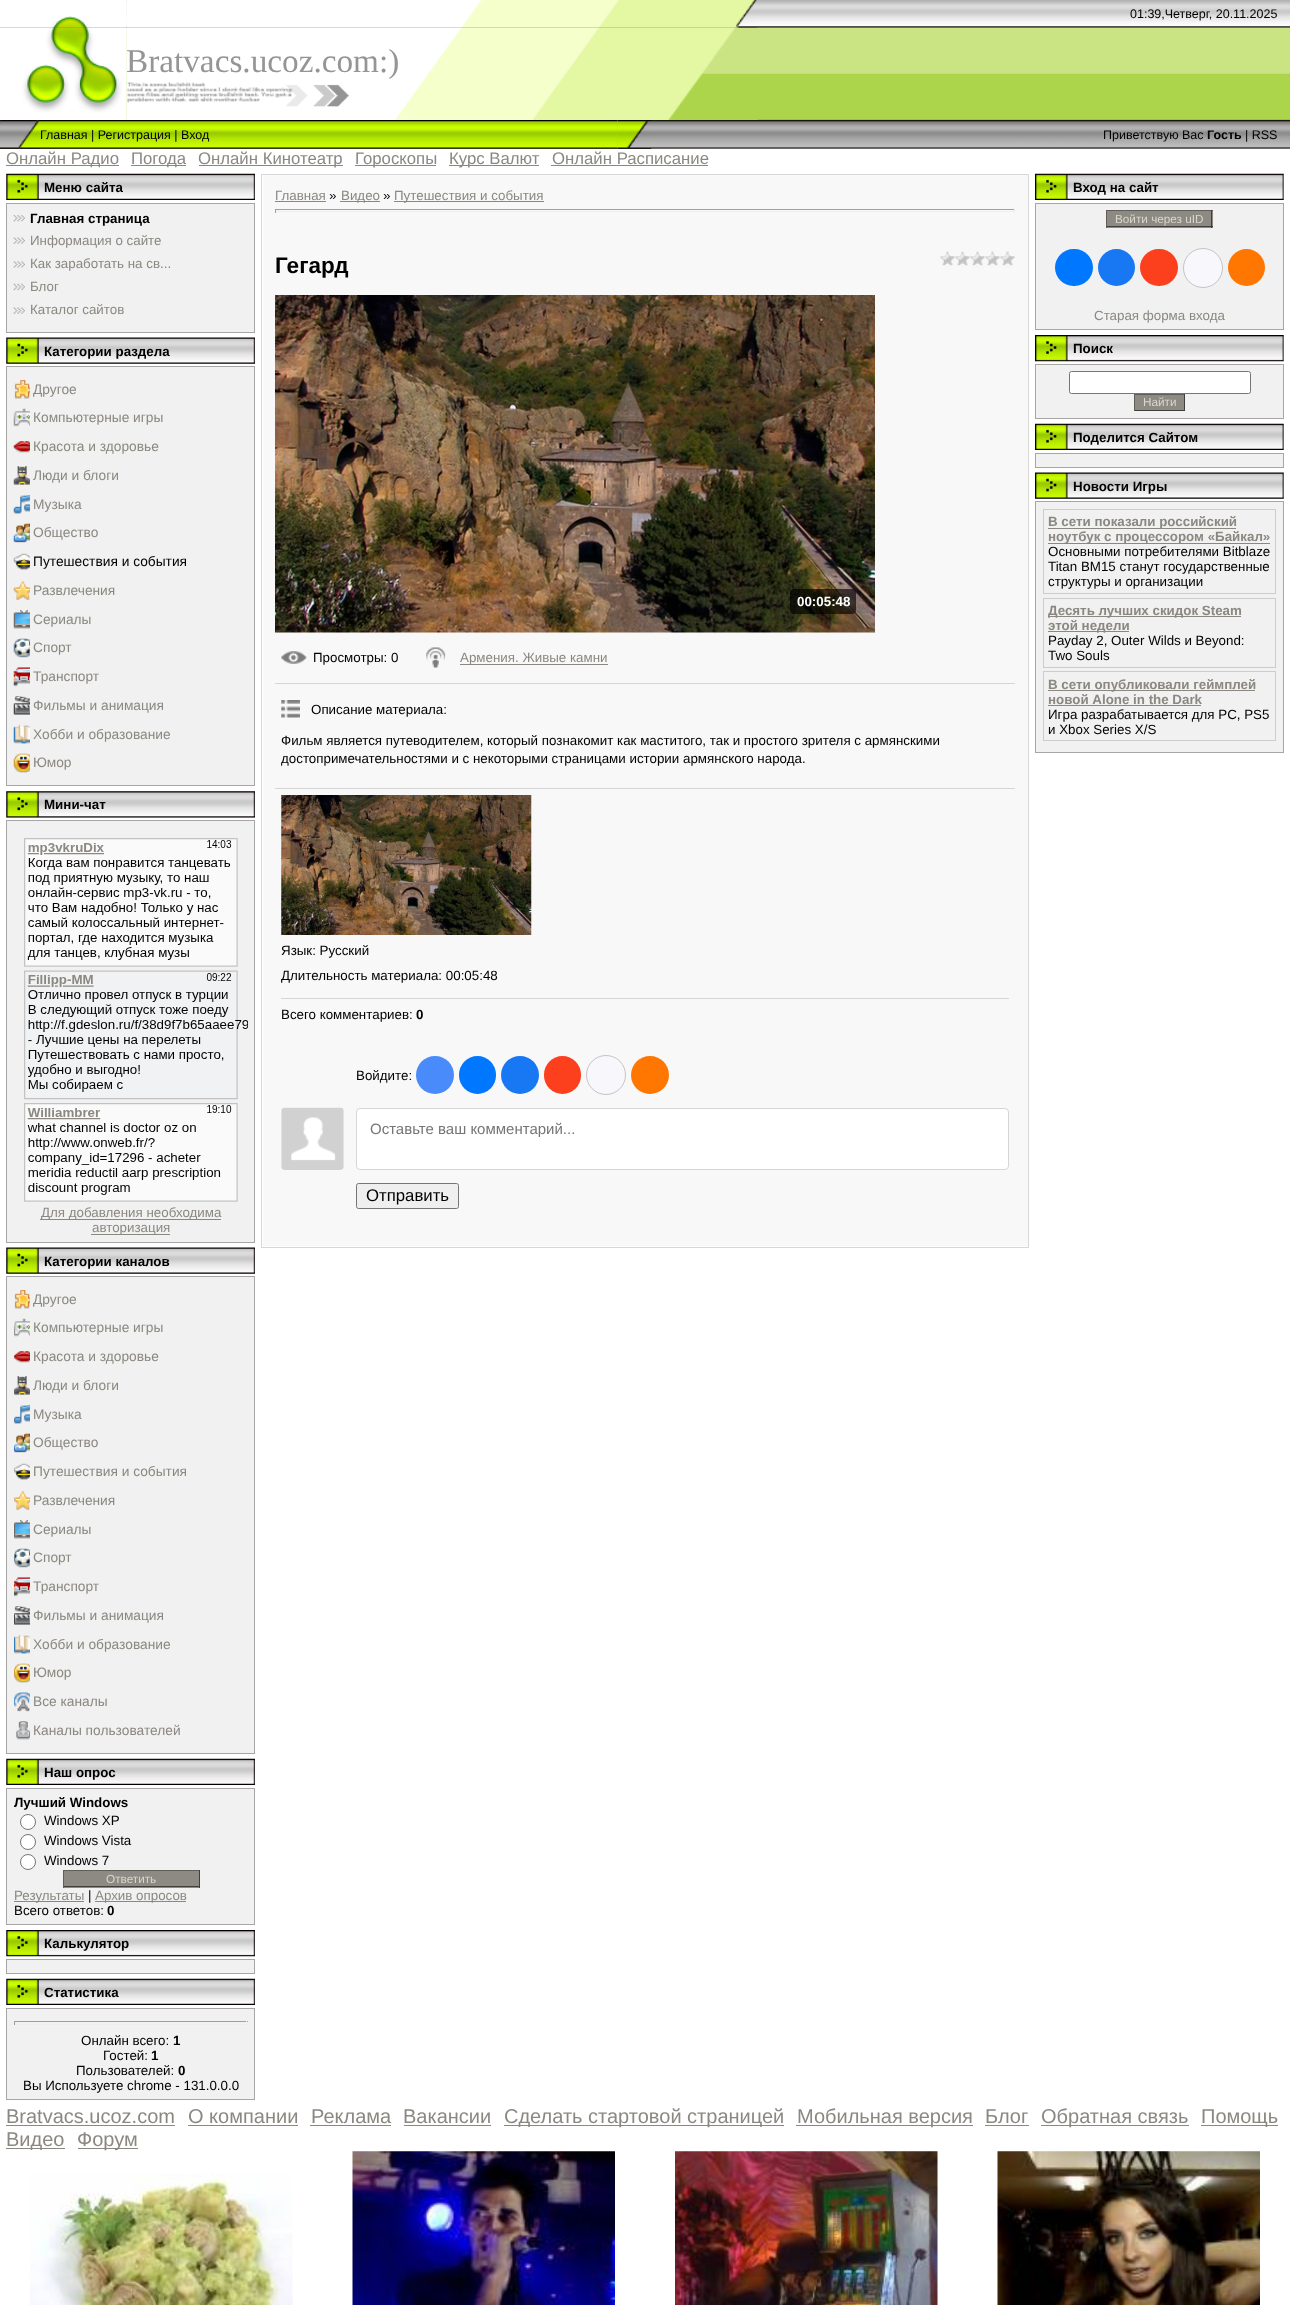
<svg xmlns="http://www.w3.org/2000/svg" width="1290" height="2305">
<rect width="100%" height="100%" fill="#fff"/>
<image x="0" y="0" width="1290" height="149" href="media/1.png"/>
<image x="126" y="27" width="632" height="93" href="media/5.png"/>
<image x="0" y="0" width="127" height="28" href="media/2.png"/>
<image x="126" y="0" width="632" height="28" href="media/3.png"/>
<text x="1130" y="18" style="font-family:Liberation Sans;font-size:12.5px;fill:#000">01:39,Четверг, 20.11.2025</text>
<image x="0" y="27" width="127" height="93" href="media/4.png"/>
<text x="126" y="72" style="font-family:Liberation Serif;font-size:33.25px;fill:#969595">Bratvacs.ucoz.com:)</text>
<image x="0" y="120" width="40" height="29" href="media/6.png"/>
<rect x="40" y="120" width="578" height="29" fill="#b0e300"/>
<image x="40" y="120" width="578" height="29" href="media/7.png"/>
<text x="40" y="139" style="font-family:Liberation Sans;font-size:12.5px;fill:#000">Главная | Регистрация | Вход</text>
<image x="617" y="120" width="35" height="29" href="media/8.png"/>
<text x="1103" y="139" style="font-family:Liberation Sans;font-size:12.5px;fill:#000">Приветствую Вас</text>
<text x="1207" y="139" style="font-family:Liberation Sans;font-size:12.5px;font-weight:bold;fill:#000">Гость</text>
<text x="1245" y="139" style="font-family:Liberation Sans;font-size:12.5px;fill:#000">| RSS</text>
<rect x="6" y="165" width="113" height="1" fill="#8b8881"/>
<text x="6" y="164" style="font-family:Liberation Sans;font-size:16.75px;fill:#8b8881">Онлайн Радио</text>
<rect x="131" y="165" width="55" height="1" fill="#8b8881"/>
<text x="131" y="164" style="font-family:Liberation Sans;font-size:16.75px;fill:#8b8881">Погода</text>
<rect x="199" y="165" width="144" height="1" fill="#8b8881"/>
<text x="198" y="164" style="font-family:Liberation Sans;font-size:16.75px;fill:#8b8881">Онлайн Кинотеатр</text>
<rect x="355" y="165" width="81" height="1" fill="#8b8881"/>
<text x="355" y="164" style="font-family:Liberation Sans;font-size:16.75px;fill:#8b8881">Гороскопы</text>
<rect x="449" y="165" width="90" height="1" fill="#8b8881"/>
<text x="449" y="164" style="font-family:Liberation Sans;font-size:16.75px;fill:#8b8881">Курс Валют</text>
<text x="552" y="164" style="font-family:Liberation Sans;font-size:16.75px;fill:#8b8881">Онлайн Расписание</text>
<rect x="551" y="165" width="157" height="1" fill="#8b8881"/>
<image x="6" y="173" width="249" height="27" href="media/9.png"/>
<text x="44" y="192" style="font-family:Liberation Sans;font-size:13.35px;font-weight:bold;fill:#000">Меню сайта</text>
<rect x="6.5" y="203.5" width="248" height="129" fill="#f1f1f1" stroke="#a7a6a6"/>
<image x="13" y="214" width="12" height="8" href="media/10.png"/>
<text x="30" y="223" style="font-family:Liberation Sans;font-size:13.35px;font-weight:bold;fill:#000">Главная страница</text>
<image x="13" y="237" width="12" height="7" href="media/11.png"/>
<text x="30" y="245" style="font-family:Liberation Sans;font-size:13.35px;fill:#8b8881">Информация о сайте</text>
<image x="13" y="261" width="12" height="7" href="media/12.png"/>
<text x="30" y="268" style="font-family:Liberation Sans;font-size:13.35px;fill:#8b8881">Как заработать на св...</text>
<image x="13" y="283" width="12" height="8" href="media/13.png"/>
<text x="30" y="291" style="font-family:Liberation Sans;font-size:13.35px;fill:#8b8881">Блог</text>
<image x="13" y="307" width="12" height="7" href="media/11.png"/>
<text x="30" y="314" style="font-family:Liberation Sans;font-size:13.35px;fill:#8b8881">Каталог сайтов</text>
<rect x="6" y="338" width="249" height="26" fill="#d4dff7"/>
<image x="6" y="337" width="249" height="27" href="media/14.png"/>
<text x="44" y="356" style="font-family:Liberation Sans;font-size:13.35px;font-weight:bold;fill:#000">Категории раздела</text>
<rect x="6.5" y="366.5" width="248" height="419" fill="#f1f1f1" stroke="#a7a6a6"/>
<image x="14" y="380" width="16" height="19" href="media/15.png"/>
<text x="33" y="394" style="font-family:Liberation Sans;font-size:13.75px;fill:#8b8881">Другое</text>
<image x="13" y="408" width="17" height="19" href="media/16.png"/>
<text x="33" y="422" style="font-family:Liberation Sans;font-size:13.75px;fill:#8b8881">Компьютерные игры</text>
<image x="13" y="441" width="17" height="12" href="media/17.png"/>
<text x="33" y="451" style="font-family:Liberation Sans;font-size:13.75px;fill:#8b8881">Красота и здоровье</text>
<image x="13" y="466" width="17" height="19" href="media/18.png"/>
<text x="33" y="480" style="font-family:Liberation Sans;font-size:13.75px;fill:#8b8881">Люди и блоги</text>
<image x="13" y="495" width="17" height="19" href="media/19.png"/>
<text x="33" y="509" style="font-family:Liberation Sans;font-size:13.75px;fill:#8b8881">Музыка</text>
<image x="13" y="523" width="17" height="20" href="media/20.png"/>
<text x="33" y="537" style="font-family:Liberation Sans;font-size:13.75px;fill:#8b8881">Общество</text>
<image x="13" y="553" width="17" height="17" href="media/21.png"/>
<text x="33" y="566" style="font-family:Liberation Sans;font-size:13.75px;fill:#000">Путешествия и события</text>
<image x="13" y="581" width="17" height="19" href="media/22.png"/>
<text x="33" y="595" style="font-family:Liberation Sans;font-size:13.75px;fill:#8b8881">Развлечения</text>
<image x="13" y="610" width="17" height="19" href="media/23.png"/>
<text x="33" y="624" style="font-family:Liberation Sans;font-size:13.75px;fill:#8b8881">Сериалы</text>
<image x="13" y="638" width="17" height="20" href="media/24.png"/>
<text x="33" y="652" style="font-family:Liberation Sans;font-size:13.75px;fill:#8b8881">Спорт</text>
<image x="13" y="667" width="17" height="20" href="media/25.png"/>
<text x="33" y="681" style="font-family:Liberation Sans;font-size:13.75px;fill:#8b8881">Транспорт</text>
<image x="13" y="696" width="17" height="19" href="media/26.png"/>
<text x="33" y="710" style="font-family:Liberation Sans;font-size:13.75px;fill:#8b8881">Фильмы и анимация</text>
<image x="13" y="725" width="17" height="19" href="media/27.png"/>
<text x="33" y="739" style="font-family:Liberation Sans;font-size:13.75px;fill:#8b8881">Хобби и образование</text>
<image x="13" y="753" width="17" height="20" href="media/28.png"/>
<text x="33" y="767" style="font-family:Liberation Sans;font-size:13.75px;fill:#8b8881">Юмор</text>
<rect x="6" y="791" width="249" height="27" fill="#d4dff7"/>
<image x="6" y="791" width="249" height="27" href="media/29.png"/>
<text x="44" y="809" style="font-family:Liberation Sans;font-size:13.35px;font-weight:bold;fill:#000">Мини-чат</text>
<rect x="6.5" y="820.5" width="248" height="422" fill="#f1f1f1" stroke="#a7a6a6"/>
<image x="24" y="838" width="224" height="364" href="media/30.png"/>
<rect x="40" y="1219" width="181" height="1" fill="#8b8881"/>
<text x="41" y="1217" style="font-family:Liberation Sans;font-size:13.35px;fill:#8b8881">Для добавления необходима</text>
<rect x="91" y="1234" width="79" height="1" fill="#8b8881"/>
<text x="92" y="1232" style="font-family:Liberation Sans;font-size:13.35px;fill:#8b8881">авторизация</text>
<rect x="6" y="1248" width="249" height="26" fill="#d4dff7"/>
<image x="6" y="1247" width="249" height="27" href="media/14.png"/>
<text x="44" y="1266" style="font-family:Liberation Sans;font-size:13.35px;font-weight:bold;fill:#000">Категории каналов</text>
<rect x="6.5" y="1276.5" width="248" height="477" fill="#f1f1f1" stroke="#a7a6a6"/>
<image x="14" y="1290" width="16" height="19" href="media/15.png"/>
<text x="33" y="1304" style="font-family:Liberation Sans;font-size:13.75px;fill:#8b8881">Другое</text>
<image x="14" y="1318" width="16" height="19" href="media/31.png"/>
<text x="33" y="1332" style="font-family:Liberation Sans;font-size:13.75px;fill:#8b8881">Компьютерные игры</text>
<image x="14" y="1351" width="16" height="12" href="media/32.png"/>
<text x="33" y="1361" style="font-family:Liberation Sans;font-size:13.75px;fill:#8b8881">Красота и здоровье</text>
<image x="14" y="1376" width="16" height="19" href="media/33.png"/>
<text x="33" y="1390" style="font-family:Liberation Sans;font-size:13.75px;fill:#8b8881">Люди и блоги</text>
<image x="14" y="1405" width="16" height="19" href="media/34.png"/>
<text x="33" y="1419" style="font-family:Liberation Sans;font-size:13.75px;fill:#8b8881">Музыка</text>
<image x="14" y="1433" width="16" height="20" href="media/35.png"/>
<text x="33" y="1447" style="font-family:Liberation Sans;font-size:13.75px;fill:#8b8881">Общество</text>
<image x="14" y="1463" width="16" height="17" href="media/36.png"/>
<text x="33" y="1476" style="font-family:Liberation Sans;font-size:13.75px;fill:#8b8881">Путешествия и события</text>
<image x="14" y="1491" width="16" height="19" href="media/37.png"/>
<text x="33" y="1505" style="font-family:Liberation Sans;font-size:13.75px;fill:#8b8881">Развлечения</text>
<image x="14" y="1520" width="16" height="19" href="media/38.png"/>
<text x="33" y="1534" style="font-family:Liberation Sans;font-size:13.75px;fill:#8b8881">Сериалы</text>
<image x="14" y="1548" width="16" height="20" href="media/39.png"/>
<text x="33" y="1562" style="font-family:Liberation Sans;font-size:13.75px;fill:#8b8881">Спорт</text>
<image x="14" y="1577" width="16" height="20" href="media/40.png"/>
<text x="33" y="1591" style="font-family:Liberation Sans;font-size:13.75px;fill:#8b8881">Транспорт</text>
<image x="14" y="1606" width="16" height="19" href="media/41.png"/>
<text x="33" y="1620" style="font-family:Liberation Sans;font-size:13.75px;fill:#8b8881">Фильмы и анимация</text>
<image x="14" y="1635" width="16" height="19" href="media/42.png"/>
<text x="33" y="1649" style="font-family:Liberation Sans;font-size:13.75px;fill:#8b8881">Хобби и образование</text>
<image x="14" y="1663" width="16" height="20" href="media/43.png"/>
<text x="33" y="1677" style="font-family:Liberation Sans;font-size:13.75px;fill:#8b8881">Юмор</text>
<image x="14" y="1692" width="16" height="20" href="media/44.png"/>
<text x="33" y="1706" style="font-family:Liberation Sans;font-size:13.75px;fill:#8b8881">Все каналы</text>
<image x="16" y="1721" width="14" height="19" href="media/45.png"/>
<text x="33" y="1735" style="font-family:Liberation Sans;font-size:13.75px;fill:#8b8881">Каналы пользователей</text>
<image x="6" y="1758" width="249" height="27" href="media/9.png"/>
<text x="44" y="1777" style="font-family:Liberation Sans;font-size:13.35px;font-weight:bold;fill:#000">Наш опрос</text>
<rect x="6.5" y="1788.5" width="248" height="136" fill="#f1f1f1" stroke="#a7a6a6"/>
<text x="14" y="1807" style="font-family:Liberation Sans;font-size:13.35px;font-weight:bold;fill:#000">Лучший Windows</text>
<circle cx="28" cy="1822" r="7.5" fill="#fff" stroke="#767676"/>
<text x="44" y="1825" style="font-family:Liberation Sans;font-size:13.35px;fill:#000">Windows XP</text>
<circle cx="28" cy="1842" r="7.5" fill="#fff" stroke="#767676"/>
<text x="44" y="1845" style="font-family:Liberation Sans;font-size:13.35px;fill:#000">Windows Vista</text>
<circle cx="28" cy="1862" r="7.5" fill="#fff" stroke="#767676"/>
<text x="44" y="1865" style="font-family:Liberation Sans;font-size:13.35px;fill:#000">Windows 7</text>
<rect x="64" y="1871" width="135" height="17" fill="#8d8a83"/>
<rect x="63" y="1870" width="137" height="1" fill="#615e58"/>
<rect x="199" y="1870" width="1" height="18" fill="#413f3b"/>
<rect x="63" y="1886" width="137" height="1" fill="#413f3b"/>
<rect x="63" y="1870" width="1" height="18" fill="#615e58"/>
<text x="106" y="1883" style="font-family:Liberation Sans;font-size:11.75px;fill:#dad7cc">Ответить</text>
<rect x="14" y="1901" width="70" height="1" fill="#8b8881"/>
<text x="14" y="1900" style="font-family:Liberation Sans;font-size:13.35px;fill:#8b8881">Результаты</text>
<text x="88" y="1900" style="font-family:Liberation Sans;font-size:13.35px;fill:#000">|</text>
<rect x="95" y="1901" width="91" height="1" fill="#8b8881"/>
<text x="95" y="1900" style="font-family:Liberation Sans;font-size:13.35px;fill:#8b8881">Архив опросов</text>
<text x="14" y="1915" style="font-family:Liberation Sans;font-size:13.35px;fill:#000">Всего ответов:</text>
<text x="107" y="1915" style="font-family:Liberation Sans;font-size:13.35px;font-weight:bold;fill:#000">0</text>
<image x="6" y="1930" width="249" height="27" href="media/46.png"/>
<text x="44" y="1948" style="font-family:Liberation Sans;font-size:13.35px;font-weight:bold;fill:#000">Калькулятор</text>
<rect x="6.5" y="1959.5" width="248" height="14" fill="#f1f1f1" stroke="#a7a6a6"/>
<image x="6" y="1978" width="249" height="27" href="media/9.png"/>
<text x="44" y="1997" style="font-family:Liberation Sans;font-size:13.35px;font-weight:bold;fill:#000">Статистика</text>
<rect x="6.5" y="2008.5" width="248" height="91" fill="#f1f1f1" stroke="#a7a6a6"/>
<rect x="14" y="2021" width="234" height="1" fill="#9f9f9f"/>
<rect x="246" y="2021" width="1" height="4" fill="#eee"/>
<rect x="14" y="2024" width="234" height="1" fill="#eee"/>
<rect x="14" y="2021" width="1" height="4" fill="#9f9f9f"/>
<text x="81" y="2045" style="font-family:Liberation Sans;font-size:13.35px;fill:#000">Онлайн всего:</text>
<text x="173" y="2045" style="font-family:Liberation Sans;font-size:13.35px;font-weight:bold;fill:#000">1</text>
<text x="103" y="2060" style="font-family:Liberation Sans;font-size:13.35px;fill:#000">Гостей:</text>
<text x="151" y="2060" style="font-family:Liberation Sans;font-size:13.35px;font-weight:bold;fill:#000">1</text>
<text x="76" y="2075" style="font-family:Liberation Sans;font-size:13.35px;fill:#000">Пользователей:</text>
<text x="178" y="2075" style="font-family:Liberation Sans;font-size:13.35px;font-weight:bold;fill:#000">0</text>
<text x="23" y="2090" style="font-family:Liberation Sans;font-size:13.35px;fill:#000">Вы Используете chrome - 131.0.0.0</text>
<rect x="261.5" y="174.5" width="767" height="1073" fill="none" stroke="#d7d7d7"/>
<rect x="263" y="175" width="765" height="1071" fill="#f8f8f8"/>
<text x="275" y="200" style="font-family:Liberation Sans;font-size:13.35px;fill:#8b8881">Главная</text>
<rect x="275" y="201" width="51" height="1" fill="#8b8881"/>
<text x="329" y="200" style="font-family:Liberation Sans;font-size:13.35px;fill:#000">»</text>
<rect x="340" y="201" width="40" height="1" fill="#8b8881"/>
<text x="341" y="200" style="font-family:Liberation Sans;font-size:13.35px;fill:#8b8881">Видео</text>
<text x="383" y="200" style="font-family:Liberation Sans;font-size:13.35px;fill:#000">»</text>
<rect x="394" y="201" width="150" height="1" fill="#8b8881"/>
<text x="394" y="200" style="font-family:Liberation Sans;font-size:13.35px;fill:#8b8881">Путешествия и события</text>
<rect x="275" y="209" width="740" height="1" fill="#9f9f9f"/>
<rect x="1014" y="209" width="1" height="4" fill="#eee"/>
<rect x="275" y="211" width="740" height="1" fill="#eee"/>
<rect x="275" y="209" width="1" height="4" fill="#9f9f9f"/>
<text x="275" y="273" style="font-family:Liberation Sans;font-size:22.5px;font-weight:bold;fill:#000">Гегард</text>
<image x="940" y="251" width="75" height="16" href="media/47.png"/>
<image x="275" y="295" width="600" height="338" href="media/48.png"/>
<rect x="790" y="589" width="66" height="25" rx="4" fill="#000000a1"/>
<text x="797" y="606" style="font-family:Liberation Sans;font-size:13.35px;font-weight:bold;fill:#fff">00:05:48</text>
<image x="281" y="651" width="26" height="13" href="media/49.png"/>
<text x="313" y="662" style="font-family:Liberation Sans;font-size:13.35px;fill:#000">Просмотры: 0</text>
<image x="426" y="647" width="20" height="21" href="media/50.png"/>
<rect x="460" y="664" width="148" height="1" fill="#8b8881"/>
<text x="460" y="662" style="font-family:Liberation Sans;font-size:13.35px;fill:#8b8881">Армения. Живые камни</text>
<rect x="275" y="683" width="740" height="1" fill="#d6d6d6"/>
<image x="281" y="700" width="19" height="18" href="media/51.png"/>
<text x="311" y="714" style="font-family:Liberation Sans;font-size:13.35px;fill:#000">Описание материала:</text>
<text x="281" y="745" style="font-family:Liberation Sans;font-size:13.35px;fill:#000">Фильм является путеводителем, который познакомит как маститого, так и простого зрителя с армянскими</text>
<text x="281" y="763" style="font-family:Liberation Sans;font-size:13.35px;fill:#000">достопримечательностями и с некоторыми страницами истории армянского народа.</text>
<rect x="275" y="788" width="740" height="1" fill="#d6d6d6"/>
<image x="281" y="795" width="251" height="140" href="media/52.png"/>
<text x="281" y="955" style="font-family:Liberation Sans;font-size:13.35px;fill:#000">Язык: Русский</text>
<text x="281" y="980" style="font-family:Liberation Sans;font-size:13.35px;fill:#000">Длительность материала: 00:05:48</text>
<rect x="281" y="998" width="728" height="1" fill="#d6d6d6"/>
<text x="281" y="1019" style="font-family:Liberation Sans;font-size:13.35px;fill:#000">Всего комментариев:</text>
<text x="416" y="1019" style="font-family:Liberation Sans;font-size:13.35px;font-weight:bold;fill:#000">0</text>
<text x="356" y="1080" style="font-family:Liberation Sans;font-size:13.35px;fill:#000">Войдите:</text>
<circle cx="435" cy="1075" r="19" fill="#498bfa"/>
<rect x="459" y="1056" width="37" height="38" rx="18.5" fill="#07f"/>
<circle cx="520" cy="1075" r="19" fill="#1877f2"/>
<rect x="544" y="1056" width="37" height="38" rx="18.5" fill="#fc3f1d"/>
<circle cx="606" cy="1075" r="19.5" fill="#f8f8fc" stroke="#c4c4c4"/>
<circle cx="650" cy="1075" r="19" fill="#f70"/>
<image x="281" y="1107" width="63" height="63" href="media/53.png"/>
<rect x="356.5" y="1108.5" width="652" height="61" rx="3.5" fill="#fff" stroke="#d6d6d6"/>
<text x="370" y="1134" style="font-family:Liberation Sans;font-size:15px;fill:#757575">Оставьте ваш комментарий...</text>
<rect x="356.5" y="1183.5" width="102" height="25" rx="2" fill="#efefef" stroke="#767676"/>
<text x="366" y="1201" style="font-family:Liberation Sans;font-size:16.75px;fill:#000">Отправить</text>
<image x="1035" y="173" width="249" height="27" href="media/54.png"/>
<text x="1073" y="192" style="font-family:Liberation Sans;font-size:13.35px;font-weight:bold;fill:#000">Вход на сайт</text>
<rect x="1035.5" y="203.5" width="248" height="126" fill="#f1f1f1" stroke="#a7a6a6"/>
<rect x="1107" y="211" width="106" height="17" fill="#8d8a83"/>
<rect x="1106" y="210" width="107" height="1" fill="#615e58"/>
<rect x="1211" y="210" width="1" height="18" fill="#413f3b"/>
<rect x="1106" y="226" width="107" height="1" fill="#413f3b"/>
<rect x="1106" y="210" width="1" height="18" fill="#615e58"/>
<text x="1115" y="223" style="font-family:Liberation Sans;font-size:11.75px;fill:#dad7cc">Войти через uID</text>
<rect x="1055" y="249" width="38" height="37" rx="18.5" fill="#07f"/>
<circle cx="1116.5" cy="267.5" r="18.5" fill="#1877f2"/>
<rect x="1140" y="249" width="38" height="37" rx="18.5" fill="#fc3f1d"/>
<circle cx="1203" cy="268" r="19.5" fill="#f8f8fc" stroke="#c4c4c4"/>
<circle cx="1246.5" cy="267.5" r="18.5" fill="#f70"/>
<text x="1094" y="320" style="font-family:Liberation Sans;font-size:13.35px;fill:#8b8881">Старая форма входа</text>
<image x="1035" y="335" width="249" height="27" href="media/55.png"/>
<text x="1073" y="353" style="font-family:Liberation Sans;font-size:13.35px;font-weight:bold;fill:#000">Поиск</text>
<rect x="1035.5" y="364.5" width="248" height="54" fill="#f1f1f1" stroke="#a7a6a6"/>
<rect x="1069.5" y="371.5" width="181" height="22" rx="2" fill="#fff" stroke="#767676"/>
<rect x="1135" y="395" width="49" height="15" fill="#8d8a83"/>
<rect x="1134" y="394" width="51" height="1" fill="#615e58"/>
<rect x="1184" y="394" width="1" height="17" fill="#413f3b"/>
<rect x="1134" y="410" width="51" height="1" fill="#413f3b"/>
<rect x="1134" y="394" width="1" height="17" fill="#615e58"/>
<text x="1143" y="406" style="font-family:Liberation Sans;font-size:11.75px;fill:#dad7cc">Найти</text>
<image x="1035" y="423" width="249" height="27" href="media/54.png"/>
<text x="1073" y="442" style="font-family:Liberation Sans;font-size:13.35px;font-weight:bold;fill:#000">Поделится Сайтом</text>
<rect x="1035.5" y="453.5" width="248" height="14" fill="#f1f1f1" stroke="#a7a6a6"/>
<rect x="1035" y="473" width="249" height="26" fill="#d4dff7"/>
<image x="1035" y="472" width="249" height="27" href="media/56.png"/>
<text x="1073" y="491" style="font-family:Liberation Sans;font-size:13.35px;font-weight:bold;fill:#000">Новости Игры</text>
<rect x="1035.5" y="501.5" width="248" height="251" fill="#f1f1f1" stroke="#a7a6a6"/>
<rect x="1043.5" y="509.5" width="232" height="84" fill="none" stroke="#ccc"/>
<rect x="1048" y="528" width="188" height="1" fill="#8b8881"/>
<text x="1048" y="526" style="font-family:Liberation Sans;font-size:13.35px;font-weight:bold;fill:#8b8881">В сети показали российский</text>
<rect x="1048" y="543" width="222" height="1" fill="#8b8881"/>
<text x="1048" y="541" style="font-family:Liberation Sans;font-size:13.35px;font-weight:bold;fill:#8b8881">ноутбук с процессором «Байкал»</text>
<text x="1048" y="556" style="font-family:Liberation Sans;font-size:13.35px;fill:#000">Основными потребителями Bitblaze</text>
<text x="1048" y="571" style="font-family:Liberation Sans;font-size:13.35px;fill:#000">Titan BM15 станут государственные</text>
<text x="1048" y="586" style="font-family:Liberation Sans;font-size:13.35px;fill:#000">структуры и организации</text>
<rect x="1043.5" y="598.5" width="232" height="69" fill="none" stroke="#ccc"/>
<rect x="1048" y="616" width="193" height="1" fill="#8b8881"/>
<text x="1048" y="615" style="font-family:Liberation Sans;font-size:13.35px;font-weight:bold;fill:#8b8881">Десять лучших скидок Steam</text>
<rect x="1048" y="631" width="81" height="1" fill="#8b8881"/>
<text x="1048" y="630" style="font-family:Liberation Sans;font-size:13.35px;font-weight:bold;fill:#8b8881">этой недели</text>
<text x="1048" y="645" style="font-family:Liberation Sans;font-size:13.35px;fill:#000">Payday 2, Outer Wilds и Beyond:</text>
<text x="1048" y="660" style="font-family:Liberation Sans;font-size:13.35px;fill:#000">Two Souls</text>
<rect x="1043.5" y="671.5" width="232" height="69" fill="none" stroke="#ccc"/>
<rect x="1048" y="690" width="207" height="1" fill="#8b8881"/>
<text x="1048" y="689" style="font-family:Liberation Sans;font-size:13.35px;font-weight:bold;fill:#8b8881">В сети опубликовали геймплей</text>
<text x="1048" y="704" style="font-family:Liberation Sans;font-size:13.35px;font-weight:bold;fill:#8b8881">новой Alone in the Dark</text>
<rect x="1048" y="705" width="153" height="1" fill="#8b8881"/>
<text x="1048" y="719" style="font-family:Liberation Sans;font-size:13.35px;fill:#000">Игра разрабатывается для PC, PS5</text>
<text x="1048" y="734" style="font-family:Liberation Sans;font-size:13.35px;fill:#000">и Xbox Series X/S</text>
<text x="6" y="2123" style="font-family:Liberation Sans;font-size:20px;fill:#8b8881">Bratvacs.ucoz.com</text>
<rect x="6" y="2125" width="169" height="1" fill="#8b8881"/>
<text x="188" y="2123" style="font-family:Liberation Sans;font-size:20px;fill:#8b8881">О компании</text>
<rect x="188" y="2125" width="110" height="1" fill="#8b8881"/>
<text x="311" y="2123" style="font-family:Liberation Sans;font-size:20px;fill:#8b8881">Реклама</text>
<rect x="310" y="2125" width="81" height="1" fill="#8b8881"/>
<text x="403" y="2123" style="font-family:Liberation Sans;font-size:20px;fill:#8b8881">Вакансии</text>
<rect x="404" y="2125" width="87" height="1" fill="#8b8881"/>
<rect x="504" y="2125" width="280" height="1" fill="#8b8881"/>
<text x="504" y="2123" style="font-family:Liberation Sans;font-size:20px;fill:#8b8881">Сделать стартовой страницей</text>
<rect x="796" y="2125" width="177" height="1" fill="#8b8881"/>
<text x="797" y="2123" style="font-family:Liberation Sans;font-size:20px;fill:#8b8881">Мобильная версия</text>
<text x="985" y="2123" style="font-family:Liberation Sans;font-size:20px;fill:#8b8881">Блог</text>
<rect x="985" y="2125" width="44" height="1" fill="#8b8881"/>
<rect x="1041" y="2125" width="148" height="1" fill="#8b8881"/>
<text x="1041" y="2123" style="font-family:Liberation Sans;font-size:20px;fill:#8b8881">Обратная связь</text>
<rect x="1201" y="2125" width="77" height="1" fill="#8b8881"/>
<text x="1201" y="2123" style="font-family:Liberation Sans;font-size:20px;fill:#8b8881">Помощь</text>
<rect x="6" y="2148" width="59" height="1" fill="#8b8881"/>
<text x="6" y="2146" style="font-family:Liberation Sans;font-size:20px;fill:#8b8881">Видео</text>
<rect x="78" y="2148" width="60" height="1" fill="#8b8881"/>
<text x="77" y="2146" style="font-family:Liberation Sans;font-size:20px;fill:#8b8881">Форум</text>
<image x="30" y="2173" width="263" height="132" href="media/57.png"/>
<image x="352" y="2151" width="263" height="154" href="media/58.png"/>
<image x="675" y="2151" width="263" height="154" href="media/59.png"/>
<image x="997" y="2151" width="263" height="154" href="media/60.png"/>
</svg>
